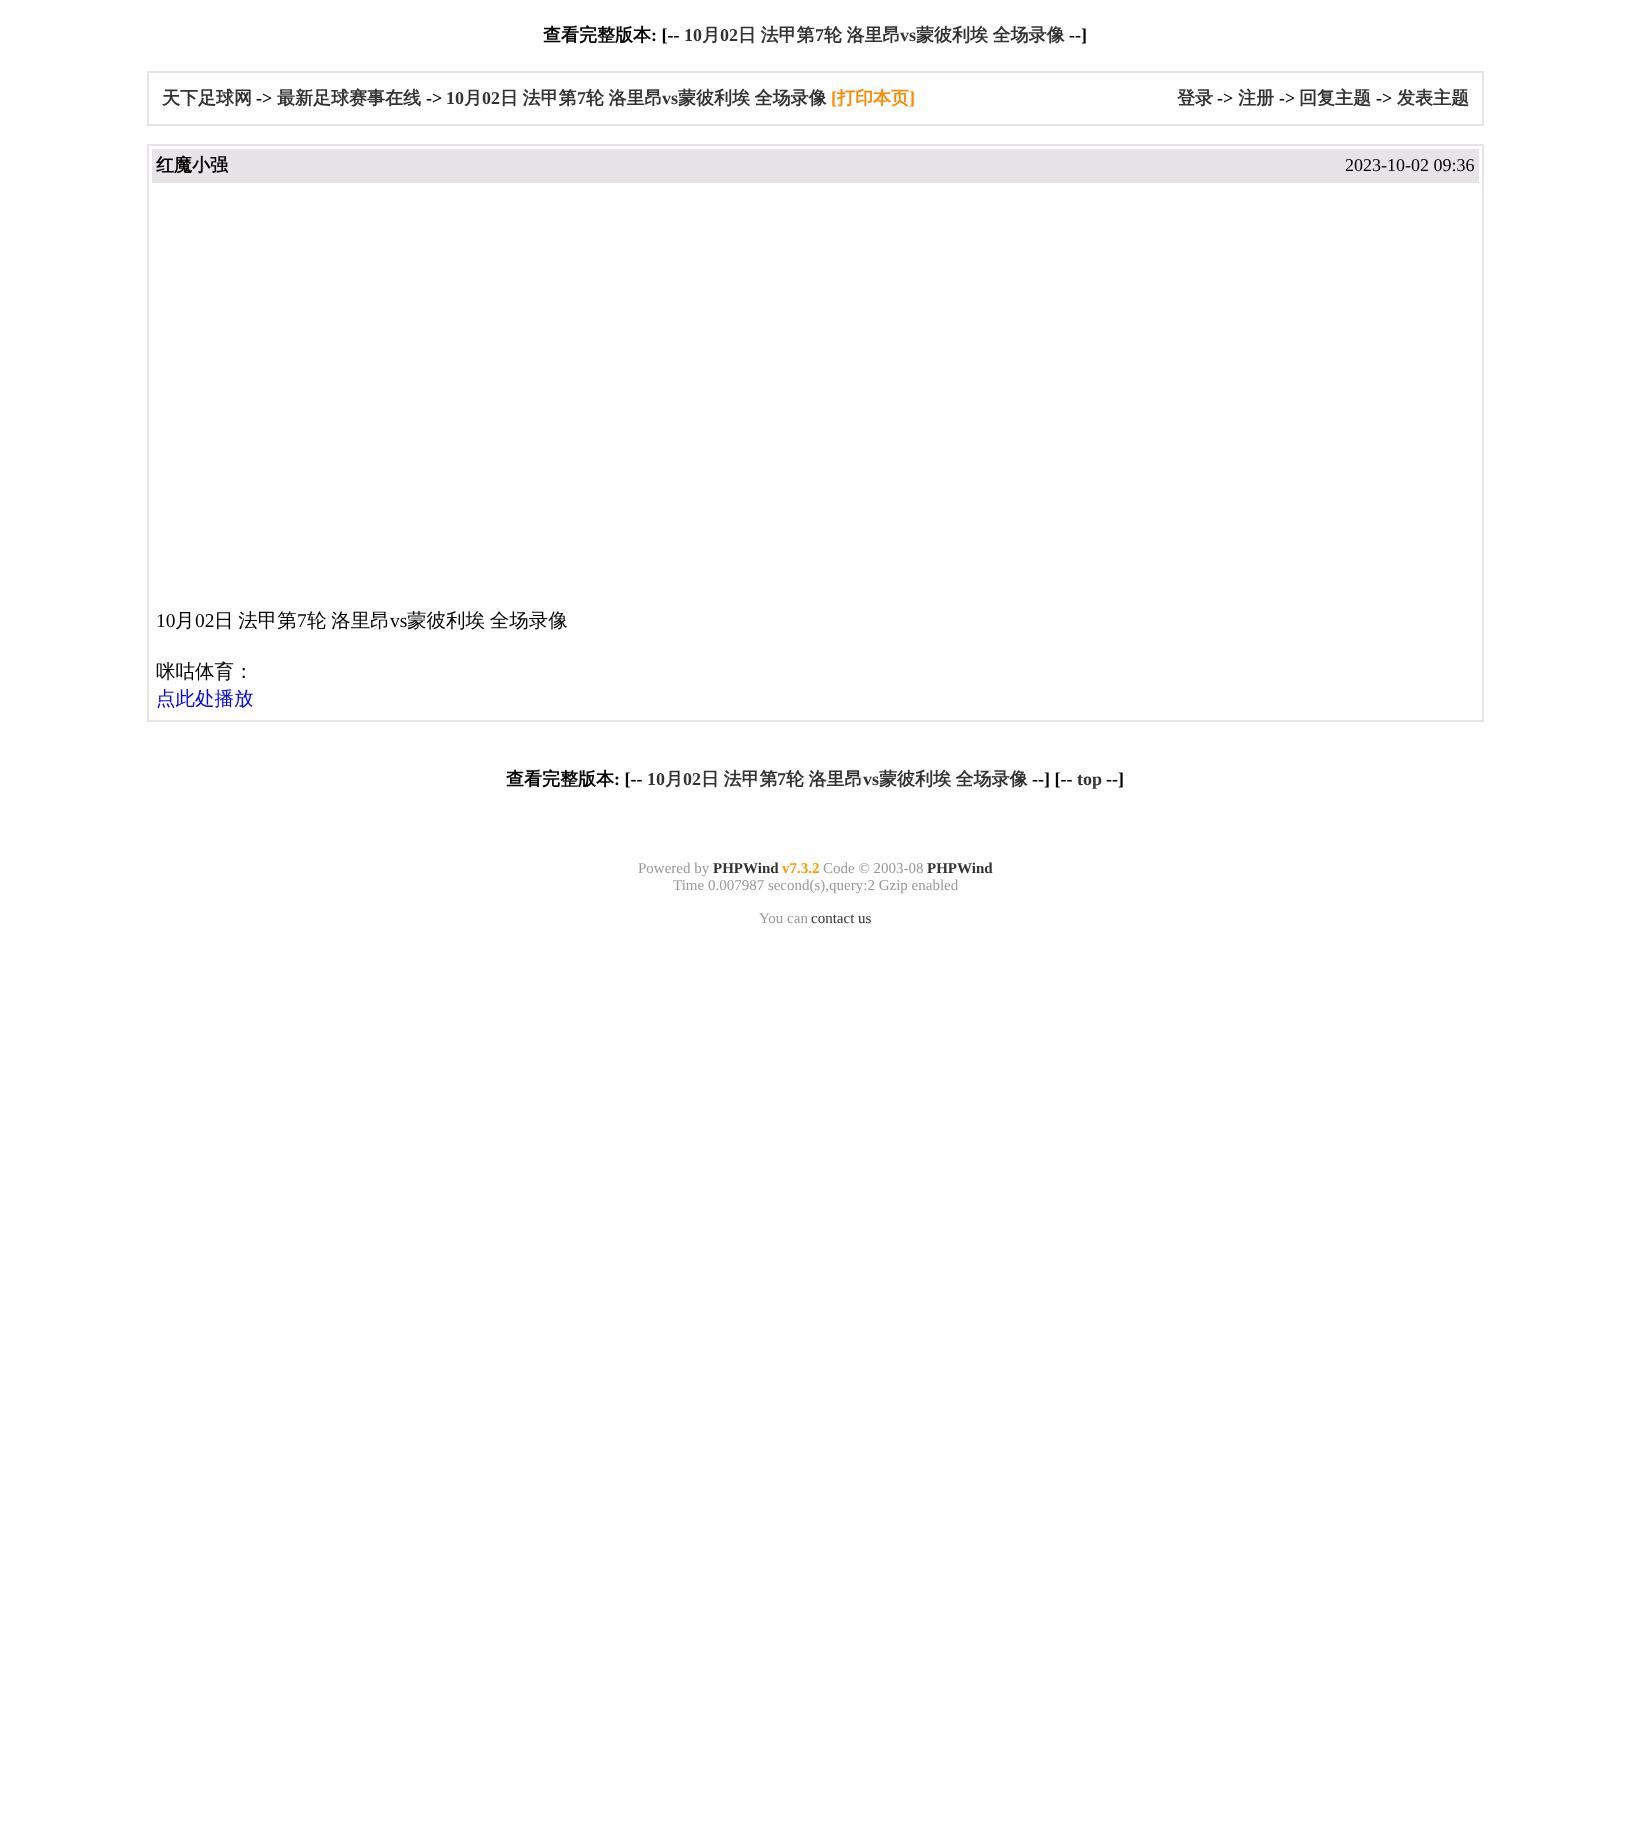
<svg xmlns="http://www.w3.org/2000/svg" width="1630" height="1838">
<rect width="100%" height="100%" fill="#fff"/>
<text x="543" y="41" style="font-family:WenQuanYi Zen Hei;font-size:18px;font-weight:bold;fill:#000">查看完整版本</text>
<text x="651" y="41" style="font-family:Liberation Serif;font-size:18px;font-weight:bold;fill:#000">: [--</text>
<text x="684" y="41" style="font-family:Liberation Serif;font-size:18px;font-weight:bold;fill:#333">10</text>
<text x="702" y="41" style="font-family:WenQuanYi Zen Hei;font-size:18px;font-weight:bold;fill:#333">月</text>
<text x="720" y="41" style="font-family:Liberation Serif;font-size:18px;font-weight:bold;fill:#333">02</text>
<text x="738" y="41" word-spacing="-1" style="font-family:WenQuanYi Zen Hei;font-size:18px;font-weight:bold;fill:#333">日 法甲第</text>
<text x="815" y="41" style="font-family:Liberation Serif;font-size:18px;font-weight:bold;fill:#333">7</text>
<text x="824" y="41" word-spacing="-1" style="font-family:WenQuanYi Zen Hei;font-size:18px;font-weight:bold;fill:#333">轮 洛里昂</text>
<text x="900" y="41" style="font-family:Liberation Serif;font-size:18px;font-weight:bold;fill:#333">vs</text>
<text x="916" y="41" word-spacing="-1" style="font-family:WenQuanYi Zen Hei;font-size:18px;font-weight:bold;fill:#333">蒙彼利埃 全场录像</text>
<text x="1069" y="41" style="font-family:Liberation Serif;font-size:18px;font-weight:bold;fill:#000">--]</text>
<rect x="148" y="72" width="1335" height="53" fill="none" stroke="#e7e3e7" stroke-width="2"/>
<text x="162" y="104" style="font-family:WenQuanYi Zen Hei;font-size:18px;font-weight:bold;fill:#333">天下足球网</text>
<text x="256" y="104" style="font-family:Liberation Serif;font-size:18px;font-weight:bold;fill:#000">-&gt;</text>
<text x="277" y="104" style="font-family:WenQuanYi Zen Hei;font-size:18px;font-weight:bold;fill:#333">最新足球赛事在线</text>
<text x="426" y="104" style="font-family:Liberation Serif;font-size:18px;font-weight:bold;fill:#000">-&gt;</text>
<text x="446" y="104" style="font-family:Liberation Serif;font-size:18px;font-weight:bold;fill:#333">10</text>
<text x="464" y="104" style="font-family:WenQuanYi Zen Hei;font-size:18px;font-weight:bold;fill:#333">月</text>
<text x="482" y="104" style="font-family:Liberation Serif;font-size:18px;font-weight:bold;fill:#333">02</text>
<text x="500" y="104" word-spacing="-1" style="font-family:WenQuanYi Zen Hei;font-size:18px;font-weight:bold;fill:#333">日 法甲第</text>
<text x="577" y="104" style="font-family:Liberation Serif;font-size:18px;font-weight:bold;fill:#333">7</text>
<text x="586" y="104" word-spacing="-1" style="font-family:WenQuanYi Zen Hei;font-size:18px;font-weight:bold;fill:#333">轮 洛里昂</text>
<text x="662" y="104" style="font-family:Liberation Serif;font-size:18px;font-weight:bold;fill:#333">vs</text>
<text x="678" y="104" word-spacing="-1" style="font-family:WenQuanYi Zen Hei;font-size:18px;font-weight:bold;fill:#333">蒙彼利埃 全场录像</text>
<text x="831" y="104" style="font-family:Liberation Serif;font-size:18px;font-weight:bold;fill:#f80">[</text>
<text x="837" y="104" style="font-family:WenQuanYi Zen Hei;font-size:18px;font-weight:bold;fill:#f80">打印本页</text>
<text x="909" y="104" style="font-family:Liberation Serif;font-size:18px;font-weight:bold;fill:#f80">]</text>
<text x="1177" y="104" style="font-family:WenQuanYi Zen Hei;font-size:18px;font-weight:bold;fill:#333">登录</text>
<text x="1217" y="104" style="font-family:Liberation Serif;font-size:18px;font-weight:bold;fill:#000">-&gt;</text>
<text x="1238" y="104" style="font-family:WenQuanYi Zen Hei;font-size:18px;font-weight:bold;fill:#333">注册</text>
<text x="1279" y="104" style="font-family:Liberation Serif;font-size:18px;font-weight:bold;fill:#000">-&gt;</text>
<text x="1299" y="104" style="font-family:WenQuanYi Zen Hei;font-size:18px;font-weight:bold;fill:#333">回复主题</text>
<text x="1376" y="104" style="font-family:Liberation Serif;font-size:18px;font-weight:bold;fill:#000">-&gt;</text>
<text x="1397" y="104" style="font-family:WenQuanYi Zen Hei;font-size:18px;font-weight:bold;fill:#333">发表主题</text>
<rect x="148" y="145" width="1335" height="576" fill="none" stroke="#e7e3e7" stroke-width="2"/>
<rect x="152" y="149" width="1327" height="34" fill="#e7e3e7"/>
<text x="156" y="171" style="font-family:WenQuanYi Zen Hei;font-size:18px;font-weight:bold;fill:#000">红魔小强</text>
<text x="1345" y="171" style="font-family:Liberation Serif;font-size:18px;fill:#000">2023-10-02 09:36</text>
<text x="156" y="627" style="font-family:Liberation Serif;font-size:19.5px;fill:#000">10</text>
<text x="175" y="627" style="font-family:WenQuanYi Zen Hei;font-size:19.5px;font-weight:500;fill:#000">月</text>
<text x="195" y="627" style="font-family:Liberation Serif;font-size:19.5px;fill:#000">02</text>
<text x="214" y="627" word-spacing="-1" style="font-family:WenQuanYi Zen Hei;font-size:19.5px;font-weight:500;fill:#000">日 法甲第</text>
<text x="297" y="627" style="font-family:Liberation Serif;font-size:19.5px;fill:#000">7</text>
<text x="307" y="627" word-spacing="-1" style="font-family:WenQuanYi Zen Hei;font-size:19.5px;font-weight:500;fill:#000">轮 洛里昂</text>
<text x="390" y="627" style="font-family:Liberation Serif;font-size:19.5px;fill:#000">vs</text>
<text x="407" y="627" word-spacing="-1" style="font-family:WenQuanYi Zen Hei;font-size:19.5px;font-weight:500;fill:#000">蒙彼利埃 全场录像</text>
<text x="156" y="678" style="font-family:WenQuanYi Zen Hei;font-size:19.5px;font-weight:500;fill:#000">咪咕体育：</text>
<text x="156" y="705" style="font-family:WenQuanYi Zen Hei;font-size:19.5px;font-weight:500;fill:#00f">点此处播放</text>
<text x="506" y="785" style="font-family:WenQuanYi Zen Hei;font-size:18px;font-weight:bold;fill:#000">查看完整版本</text>
<text x="614" y="785" style="font-family:Liberation Serif;font-size:18px;font-weight:bold;fill:#000">: [--</text>
<text x="647" y="785" style="font-family:Liberation Serif;font-size:18px;font-weight:bold;fill:#333">10</text>
<text x="665" y="785" style="font-family:WenQuanYi Zen Hei;font-size:18px;font-weight:bold;fill:#333">月</text>
<text x="683" y="785" style="font-family:Liberation Serif;font-size:18px;font-weight:bold;fill:#333">02</text>
<text x="701" y="785" word-spacing="-1" style="font-family:WenQuanYi Zen Hei;font-size:18px;font-weight:bold;fill:#333">日 法甲第</text>
<text x="777" y="785" style="font-family:Liberation Serif;font-size:18px;font-weight:bold;fill:#333">7</text>
<text x="786" y="785" word-spacing="-1" style="font-family:WenQuanYi Zen Hei;font-size:18px;font-weight:bold;fill:#333">轮 洛里昂</text>
<text x="863" y="785" style="font-family:Liberation Serif;font-size:18px;font-weight:bold;fill:#333">vs</text>
<text x="879" y="785" word-spacing="-1" style="font-family:WenQuanYi Zen Hei;font-size:18px;font-weight:bold;fill:#333">蒙彼利埃 全场录像</text>
<text x="1032" y="785" style="font-family:Liberation Serif;font-size:18px;font-weight:bold;fill:#000">--] [--</text>
<text x="1077" y="785" style="font-family:Liberation Serif;font-size:18px;font-weight:bold;fill:#333">top</text>
<text x="1106" y="785" style="font-family:Liberation Serif;font-size:18px;font-weight:bold;fill:#000">--]</text>
<text x="638" y="873" style="font-family:Liberation Serif;font-size:15px;fill:#999">Powered by</text>
<text x="713" y="873" style="font-family:Liberation Serif;font-size:15px;font-weight:bold;fill:#333">PHPWind</text>
<text x="782" y="873" style="font-family:Liberation Serif;font-size:15px;font-weight:bold;fill:#f90">v7.3.2</text>
<text x="823" y="873" style="font-family:Liberation Serif;font-size:15px;fill:#999">Code © 2003-08</text>
<text x="927" y="873" style="font-family:Liberation Serif;font-size:15px;font-weight:bold;fill:#333">PHPWind</text>
<text x="673" y="890" style="font-family:Liberation Serif;font-size:15px;fill:#999">Time 0.007987 second(s),query:2 Gzip enabled</text>
<text x="759" y="923" style="font-family:Liberation Serif;font-size:15px;fill:#999">You can</text>
<text x="811" y="923" style="font-family:Liberation Serif;font-size:15px;fill:#333">contact us</text>
</svg>
